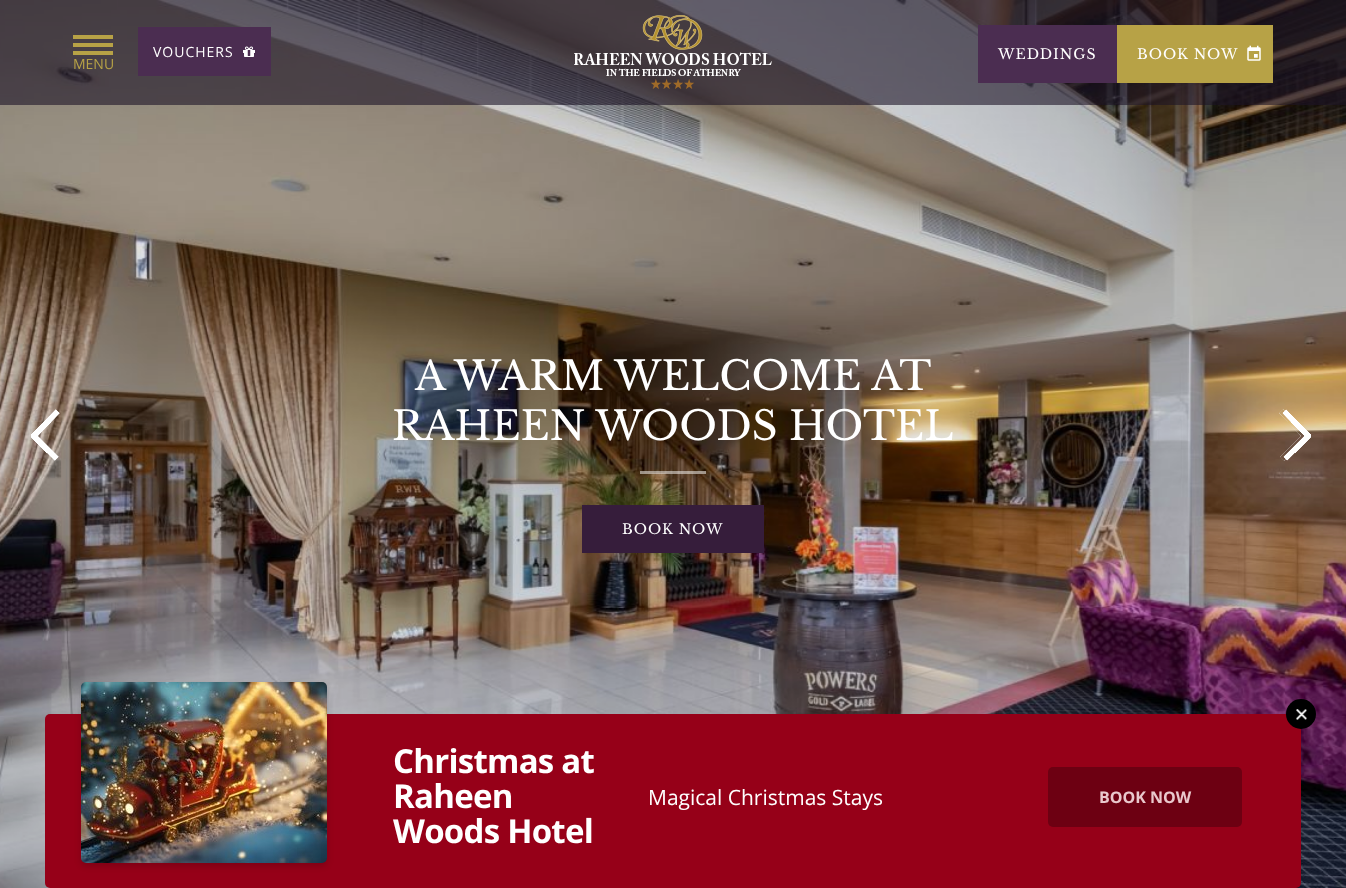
<svg xmlns="http://www.w3.org/2000/svg" width="1346" height="888">
<rect width="100%" height="100%" fill="#fff"/>
<image x="0" y="0" width="1346" height="888" href="media/5.png"/>
<rect width="1346" height="105" fill="#1d142699"/>
<rect x="138" y="27" width="133" height="49" fill="#4b2d51"/>
<text x="153" y="57" style="font-family:Open Sans;font-size:14px;letter-spacing:1px;fill:#fff">VOUCHERS</text>
<image x="243" y="46" width="12" height="11" href="media/1.png"/>
<image x="574" y="15" width="198" height="74" href="media/2.png"/>
<rect x="978" y="25" width="139" height="58" fill="#4b2d51"/>
<text x="998" y="59" style="font-family:Libre Baskerville;font-size:14px;letter-spacing:1px;fill:#fff">WEDDINGS</text>
<rect x="1117" y="25" width="156" height="58" fill="#b7a246"/>
<text x="1137" y="59" style="font-family:Libre Baskerville;font-size:14px;letter-spacing:1px;fill:#fff">BOOK NOW</text>
<image x="1247" y="45" width="14" height="16" href="media/3.png"/>
<image x="73" y="35" width="40" height="20" href="media/4.png"/>
<text x="73" y="69" style="font-family:Open Sans;font-size:14px;fill:#b7a246">MENU</text>
<text x="415" y="390" style="font-family:Libre Baskerville;font-size:40px;fill:#fff">A WARM WELCOME AT</text>
<text x="392" y="440" style="font-family:Libre Baskerville;font-size:40px;fill:#fff">RAHEEN WOODS HOTEL</text>
<rect x="640" y="471" width="66" height="3" fill="#ffffff80"/>
<rect x="582" y="505" width="182" height="48" fill="#361d3b"/>
<text x="622" y="534" style="font-family:Libre Baskerville;font-size:14px;letter-spacing:1px;fill:#fff">BOOK NOW</text>
<image x="31" y="409" width="29" height="52" href="media/6.png"/>
<image x="1279" y="409" width="32" height="52" href="media/7.png"/>
<rect x="45" y="714" width="1256" height="174" rx="5" fill="#960018"/>
<rect x="81" y="685" width="246" height="181" rx="5" fill="#00000029" filter="blur(3px)"/>
<image x="81" y="682" width="246" height="181" href="media/8.png"/>
<circle cx="1301" cy="714" r="15" fill="#000"/>
<image x="1296" y="709" width="11" height="11" href="media/9.png"/>
<text x="393" y="773" style="font-family:Open Sans;font-size:33px;font-weight:bold;letter-spacing:-0.75px;fill:#fff">Christmas at</text>
<text x="393" y="808" style="font-family:Open Sans;font-size:33px;font-weight:bold;letter-spacing:-0.75px;fill:#fff">Raheen</text>
<text x="393" y="843" style="font-family:Open Sans;font-size:33px;font-weight:bold;letter-spacing:-0.75px;fill:#fff">Woods Hotel</text>
<text x="648" y="805" style="font-family:Open Sans;font-size:21px;fill:#fff">Magical Christmas Stays</text>
<rect x="1048" y="767" width="194" height="60" rx="5" fill="#6d0012"/>
<text x="1099" y="803" style="font-family:Open Sans;font-size:16px;font-weight:bold;fill:#eac8cd">BOOK NOW</text>
</svg>
